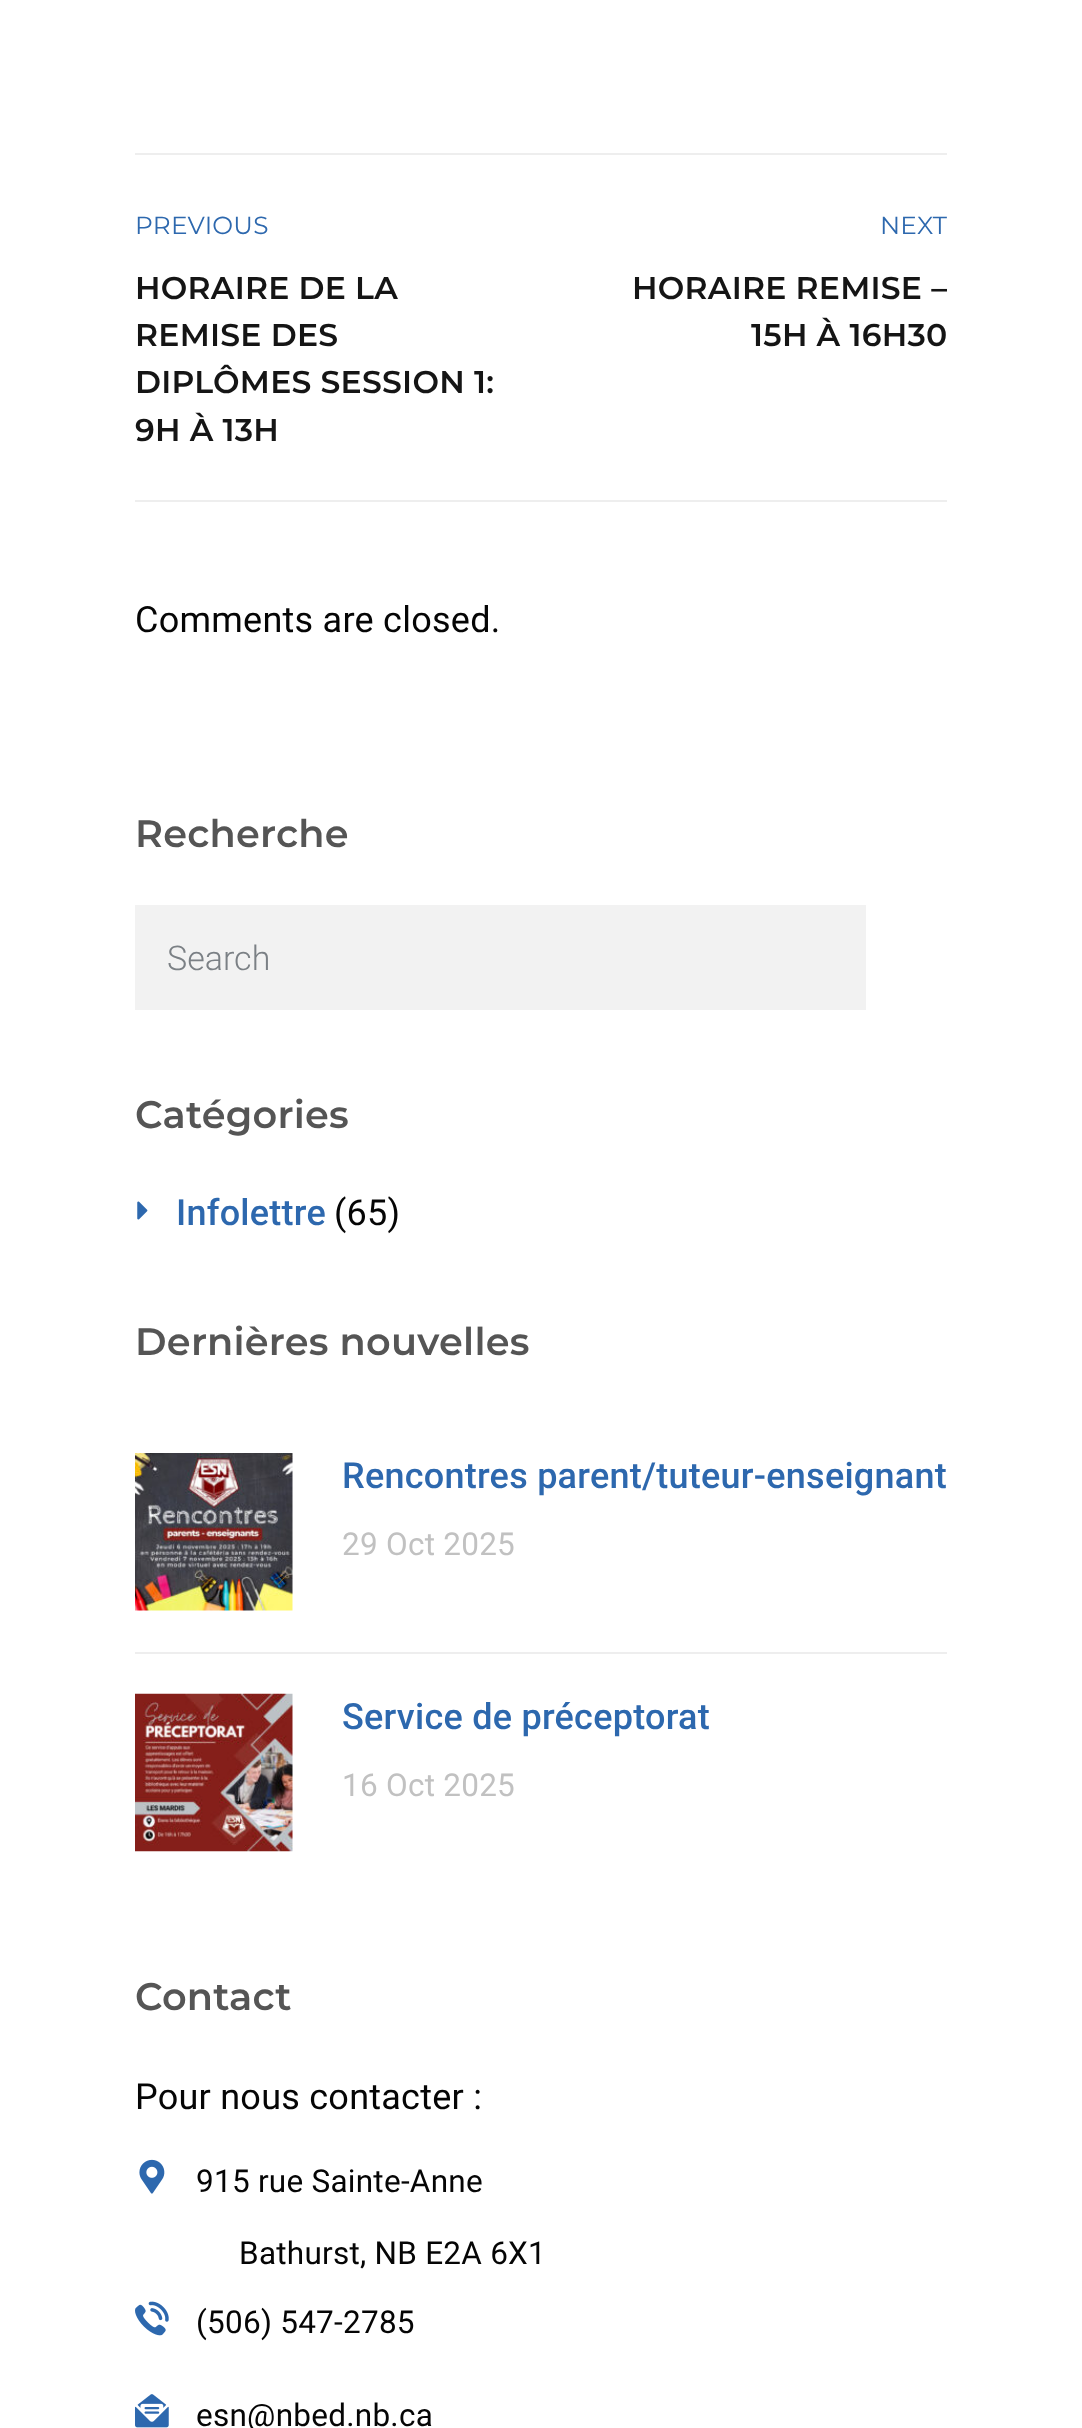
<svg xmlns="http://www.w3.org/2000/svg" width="1082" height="2428">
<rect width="100%" height="100%" fill="#fff"/>
<rect x="135" y="153" width="812" height="2" fill="#eee"/>
<rect x="135" y="500" width="812" height="2" fill="#eee"/>
<text x="135" y="234" style="font-family:Montserrat;font-size:24.75px;letter-spacing:0.25px;fill:#2d68ae">PREVIOUS</text>
<text x="135" y="299" style="font-family:Montserrat;font-size:31.5px;font-weight:600;letter-spacing:0.25px;fill:#151515">HORAIRE DE LA</text>
<text x="135" y="346" style="font-family:Montserrat;font-size:31.5px;font-weight:600;letter-spacing:0.25px;fill:#151515">REMISE DES</text>
<text x="135" y="393" style="font-family:Montserrat;font-size:31.5px;font-weight:600;letter-spacing:0.25px;fill:#151515">DIPLÔMES SESSION 1:</text>
<text x="135" y="441" style="font-family:Montserrat;font-size:31.5px;font-weight:600;letter-spacing:0.25px;fill:#151515">9H À 13H</text>
<text x="880" y="234" style="font-family:Montserrat;font-size:24.75px;letter-spacing:0.25px;fill:#2d68ae">NEXT</text>
<text x="632" y="299" style="font-family:Montserrat;font-size:31.5px;font-weight:600;letter-spacing:0.25px;fill:#151515">HORAIRE REMISE –</text>
<text x="751" y="346" style="font-family:Montserrat;font-size:31.5px;font-weight:600;letter-spacing:0.25px;fill:#151515">15H À 16H30</text>
<text x="135" y="632" style="font-family:Roboto;font-size:36px;letter-spacing:0.25px;fill:#050505">Comments are closed.</text>
<text x="135" y="847" style="font-family:Montserrat;font-size:38.25px;font-weight:600;letter-spacing:0.25px;fill:#555">Recherche</text>
<rect x="135" y="905" width="731" height="105" fill="#f2f2f2"/>
<text x="167" y="970" style="font-family:Roboto;font-size:34px;font-weight:300;fill:#7b8085">Search</text>
<text x="135" y="1128" style="font-family:Montserrat;font-size:38.25px;font-weight:600;letter-spacing:0.25px;fill:#555">Catégories</text>
<image x="137" y="1201" width="11" height="19" href="media/1.png"/>
<text x="176" y="1225" style="font-family:Roboto;font-size:36px;font-weight:500;letter-spacing:0.25px;fill:#2d68ae">Infolettre</text>
<text x="334" y="1225" style="font-family:Roboto;font-size:36px;letter-spacing:0.25px;fill:#050505">(65)</text>
<text x="135" y="1355" style="font-family:Montserrat;font-size:38.25px;font-weight:600;letter-spacing:0.25px;fill:#555">Dernières nouvelles</text>
<rect x="135" y="1652" width="812" height="2" fill="#eee"/>
<image x="135" y="1453" width="158" height="158" href="media/2.png"/>
<text x="342" y="1488" style="font-family:Roboto;font-size:36px;font-weight:500;letter-spacing:0.25px;fill:#2d68ae">Rencontres parent/tuteur-enseignant</text>
<text x="342" y="1555" style="font-family:Roboto;font-size:31.5px;letter-spacing:0.25px;fill:#c1c1c1">29 Oct 2025</text>
<image x="135" y="1693" width="158" height="159" href="media/3.png"/>
<text x="342" y="1729" style="font-family:Roboto;font-size:36px;font-weight:500;letter-spacing:0.25px;fill:#2d68ae">Service de préceptorat</text>
<text x="342" y="1796" style="font-family:Roboto;font-size:31.5px;letter-spacing:0.25px;fill:#c1c1c1">16 Oct 2025</text>
<text x="135" y="2010" style="font-family:Montserrat;font-size:38.25px;font-weight:600;letter-spacing:0.25px;fill:#555">Contact</text>
<text x="135" y="2109" style="font-family:Roboto;font-size:36px;letter-spacing:0.25px;fill:#050505">Pour nous contacter :</text>
<image x="139" y="2159" width="26" height="35" href="media/4.png"/>
<text x="196" y="2192" style="font-family:Roboto;font-size:31.5px;letter-spacing:0.25px;fill:#050505">915 rue Sainte-Anne</text>
<text x="239" y="2264" style="font-family:Roboto;font-size:31.5px;letter-spacing:0.25px;fill:#050505">Bathurst, NB E2A 6X1</text>
<image x="135" y="2301" width="34" height="35" href="media/5.png"/>
<text x="196" y="2333" style="font-family:Roboto;font-size:31.5px;letter-spacing:0.25px;fill:#050505">(506) 547-2785</text>
<image x="135" y="2394" width="34" height="34" href="media/6.png"/>
<text x="196" y="2426" style="font-family:Roboto;font-size:31.5px;letter-spacing:0.25px;fill:#050505">esn@nbed.nb.ca</text>
</svg>
